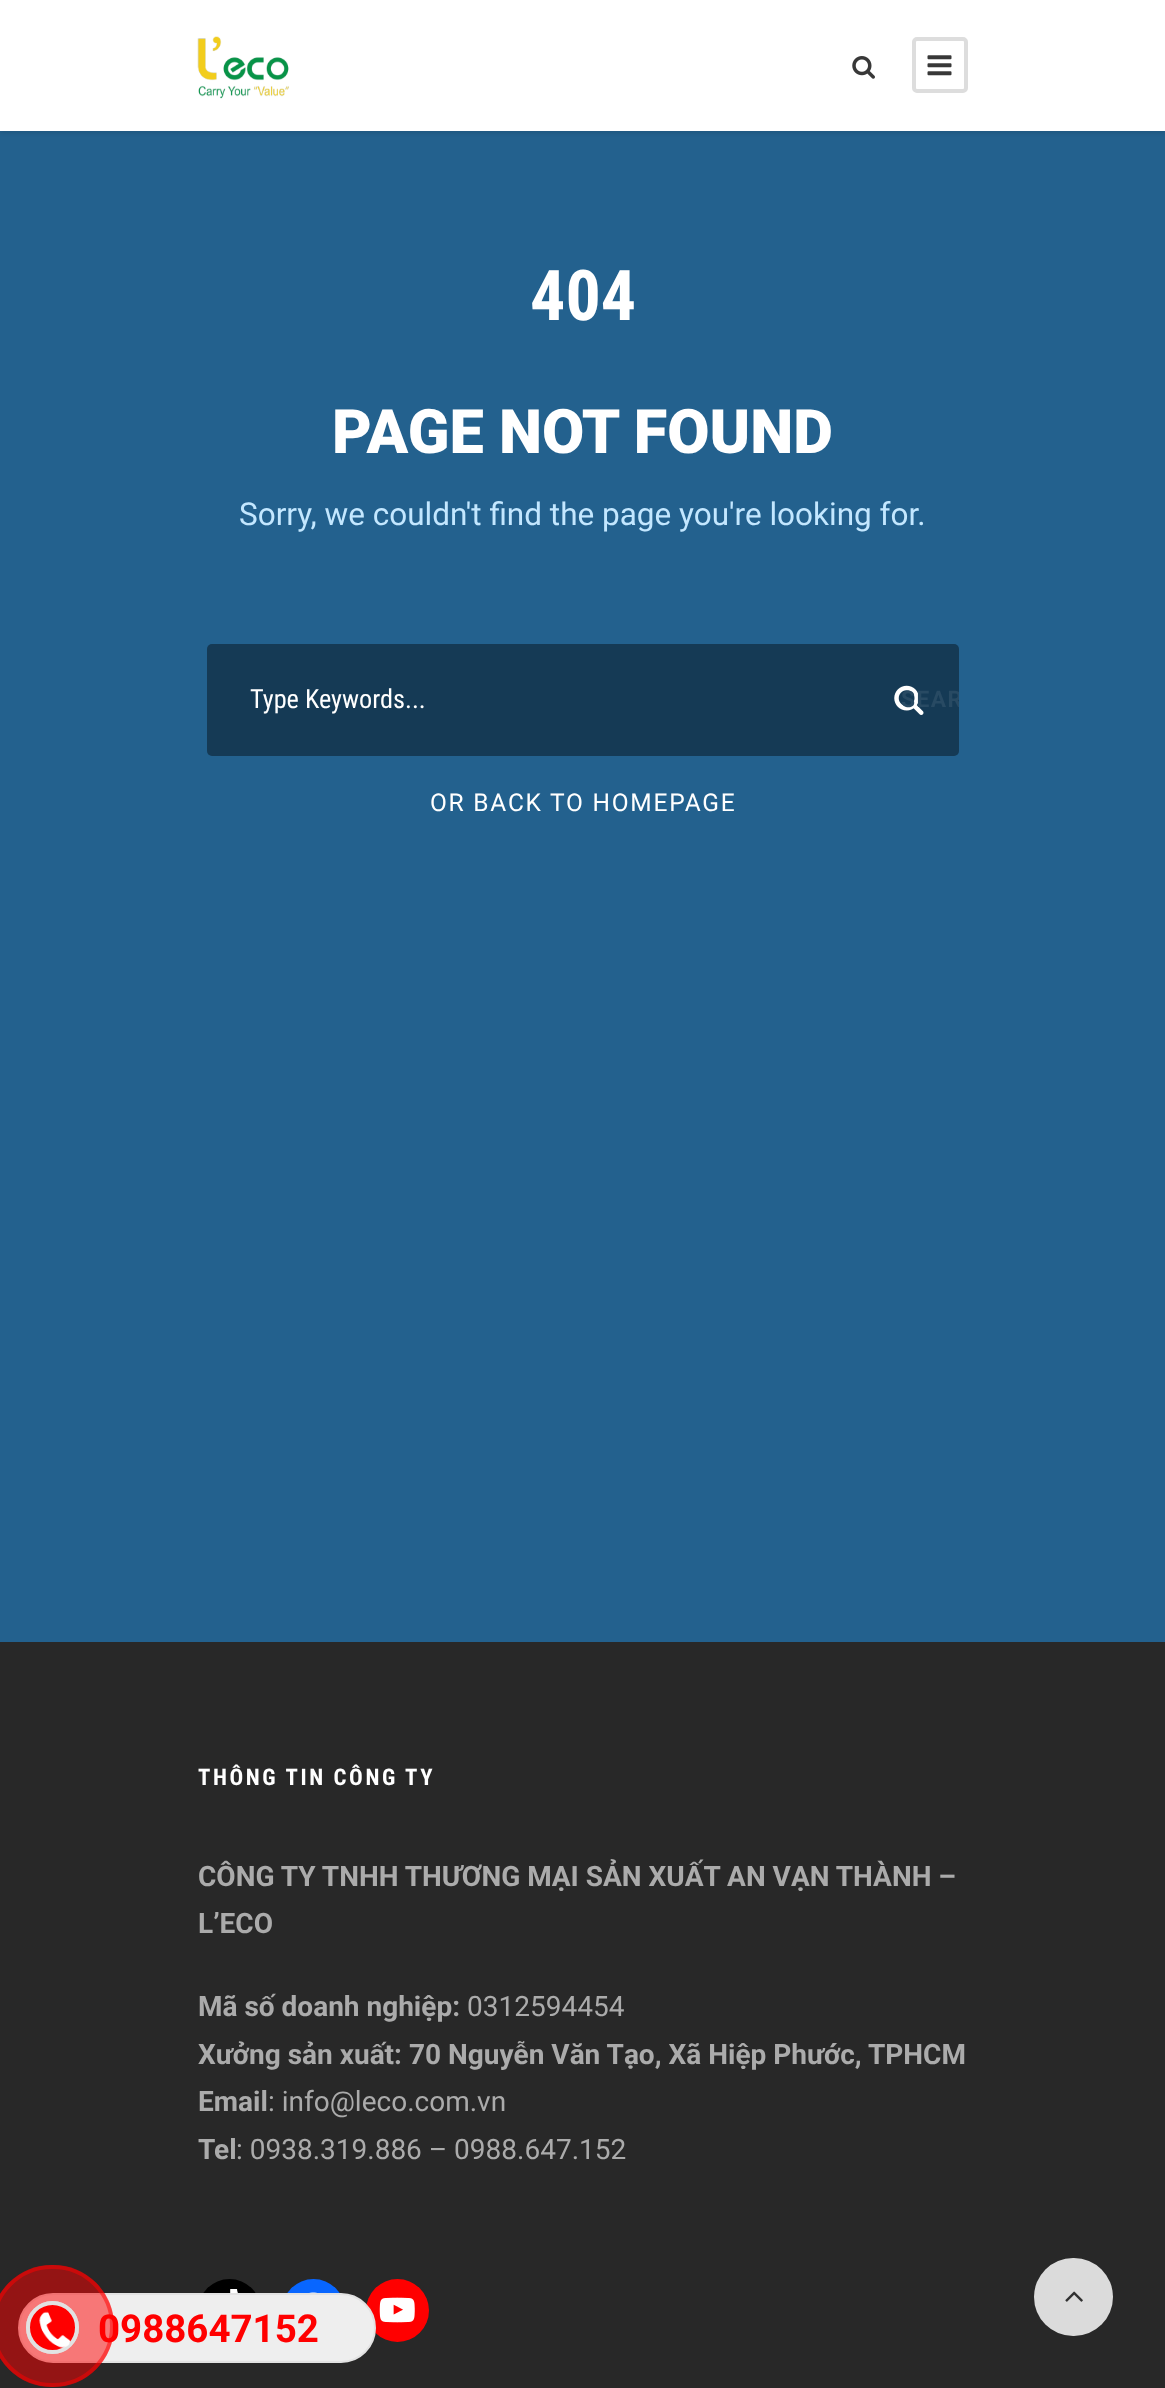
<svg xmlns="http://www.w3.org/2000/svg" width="1165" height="2388">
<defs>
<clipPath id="clip1"><rect x="844" y="644" width="115" height="112"/></clipPath>
</defs>
<rect width="100%" height="100%" fill="#282828"/>
<rect y="131" width="1165" height="1511" fill="#23618e"/>
<rect y="2" width="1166" height="131" fill="#0000001a" filter="blur(2px)"/>
<rect width="1165" height="131" fill="#fff"/>
<image x="197" y="36" width="92" height="63" href="media/1.png"/>
<image x="852" y="56" width="23" height="23" href="media/2.png"/>
<rect x="914" y="39" width="52" height="52" rx="3" fill="none" stroke="#ddd" stroke-width="4"/>
<image x="927" y="55" width="25" height="21" href="media/3.png"/>
<text x="530" y="320" style="font-family:Roboto Condensed;font-size:70px;font-weight:bold;fill:#fff">404</text>
<text x="332" y="453" style="font-family:Roboto;font-size:61.25px;font-weight:900;fill:#fff">PAGE NOT FOUND</text>
<text x="239" y="525" style="font-family:Roboto;font-size:31.5px;fill:#c3e7ff">Sorry, we couldn't find the page you're looking for.</text>
<rect x="207" y="644" width="752" height="112" rx="5" fill="#153a55"/>
<text x="250" y="708" style="font-family:Roboto Condensed;font-size:26.25px;fill:#fff">Type Keywords...</text>
<image x="894" y="685" width="30" height="30" href="media/4.png"/>
<g clip-path="url(#clip1)">
<text x="901" y="707" style="font-family:Roboto;font-size:22.75px;font-weight:bold;letter-spacing:1.5px;fill:#284a63">SEAR</text>
</g>
<text x="430" y="811" style="font-family:Roboto;font-size:24.5px;letter-spacing:1.75px;fill:#fff">OR BACK TO HOMEPAGE</text>
<text x="198" y="1785" style="font-family:Roboto Condensed;font-size:22.75px;font-weight:bold;letter-spacing:2.6px;fill:#fff">THÔNG TIN CÔNG TY</text>
<text x="198" y="1886" style="font-family:Roboto;font-size:28px;font-weight:bold;fill:#ababab">CÔNG TY TNHH THƯƠNG MẠI SẢN XUẤT AN VẠN THÀNH –</text>
<text x="198" y="1933" style="font-family:Roboto;font-size:28px;font-weight:bold;fill:#ababab">L’ECO</text>
<text x="198" y="2016" style="font-family:Roboto;font-size:28px;font-weight:bold;fill:#ababab">Mã số doanh nghiệp:</text>
<text x="467" y="2016" style="font-family:Roboto;font-size:28px;fill:#ababab">0312594454</text>
<text x="198" y="2064" style="font-family:Roboto;font-size:28px;font-weight:bold;fill:#ababab">Xưởng sản xuất: 70 Nguyễn Văn Tạo, Xã Hiệp Phước, TPHCM</text>
<text x="198" y="2111" style="font-family:Roboto;font-size:28px;font-weight:bold;fill:#ababab">Email</text>
<text x="268" y="2111" style="font-family:Roboto;font-size:28px;fill:#ababab">: info@leco.com.vn</text>
<text x="198" y="2159" style="font-family:Roboto;font-size:28px;font-weight:bold;fill:#ababab">Tel</text>
<text x="236" y="2159" style="font-family:Roboto;font-size:28px;fill:#ababab">: 0938.319.886 – 0988.647.152</text>
<circle cx="229.5" cy="2310.5" r="31.5" fill="#000"/>
<image x="230" y="2289" width="8" height="4" href="media/5.png"/>
<circle cx="313.5" cy="2310.5" r="31.5" fill="#0866ff"/>
<image x="309" y="2292" width="8" height="1" href="media/6.png"/>
<circle cx="397.5" cy="2310.5" r="31.5" fill="#f00"/>
<image x="379" y="2297" width="36" height="26" href="media/7.png"/>
<rect x="19" y="2294" width="356" height="68" rx="34" fill="#eee" stroke="#e2e2e2" stroke-width="2"/>
<text x="98" y="2342" style="font-family:Roboto;font-size:38.5px;font-weight:bold;fill:#f00">0988647152</text>
<rect x="-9" y="2265" width="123" height="122" rx="61" fill="#ff000080"/>
<rect x="-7" y="2267" width="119" height="118" rx="59" fill="none" stroke="#ff000080" stroke-width="4"/>
<circle cx="52.5" cy="2327.5" r="24.5" fill="none" stroke="#e7c7c7" stroke-width="4"/>
<circle cx="52.5" cy="2327.5" r="24.5" fill="#f00" stroke="#e2e2e2" stroke-width="4"/>
<image x="39" y="2311" width="31" height="37" href="media/8.png"/>
<rect x="1034" y="2258" width="79" height="78" rx="39" fill="#dbdbdb"/>
<image x="1065" y="2291" width="18" height="11" href="media/9.png"/>
</svg>
